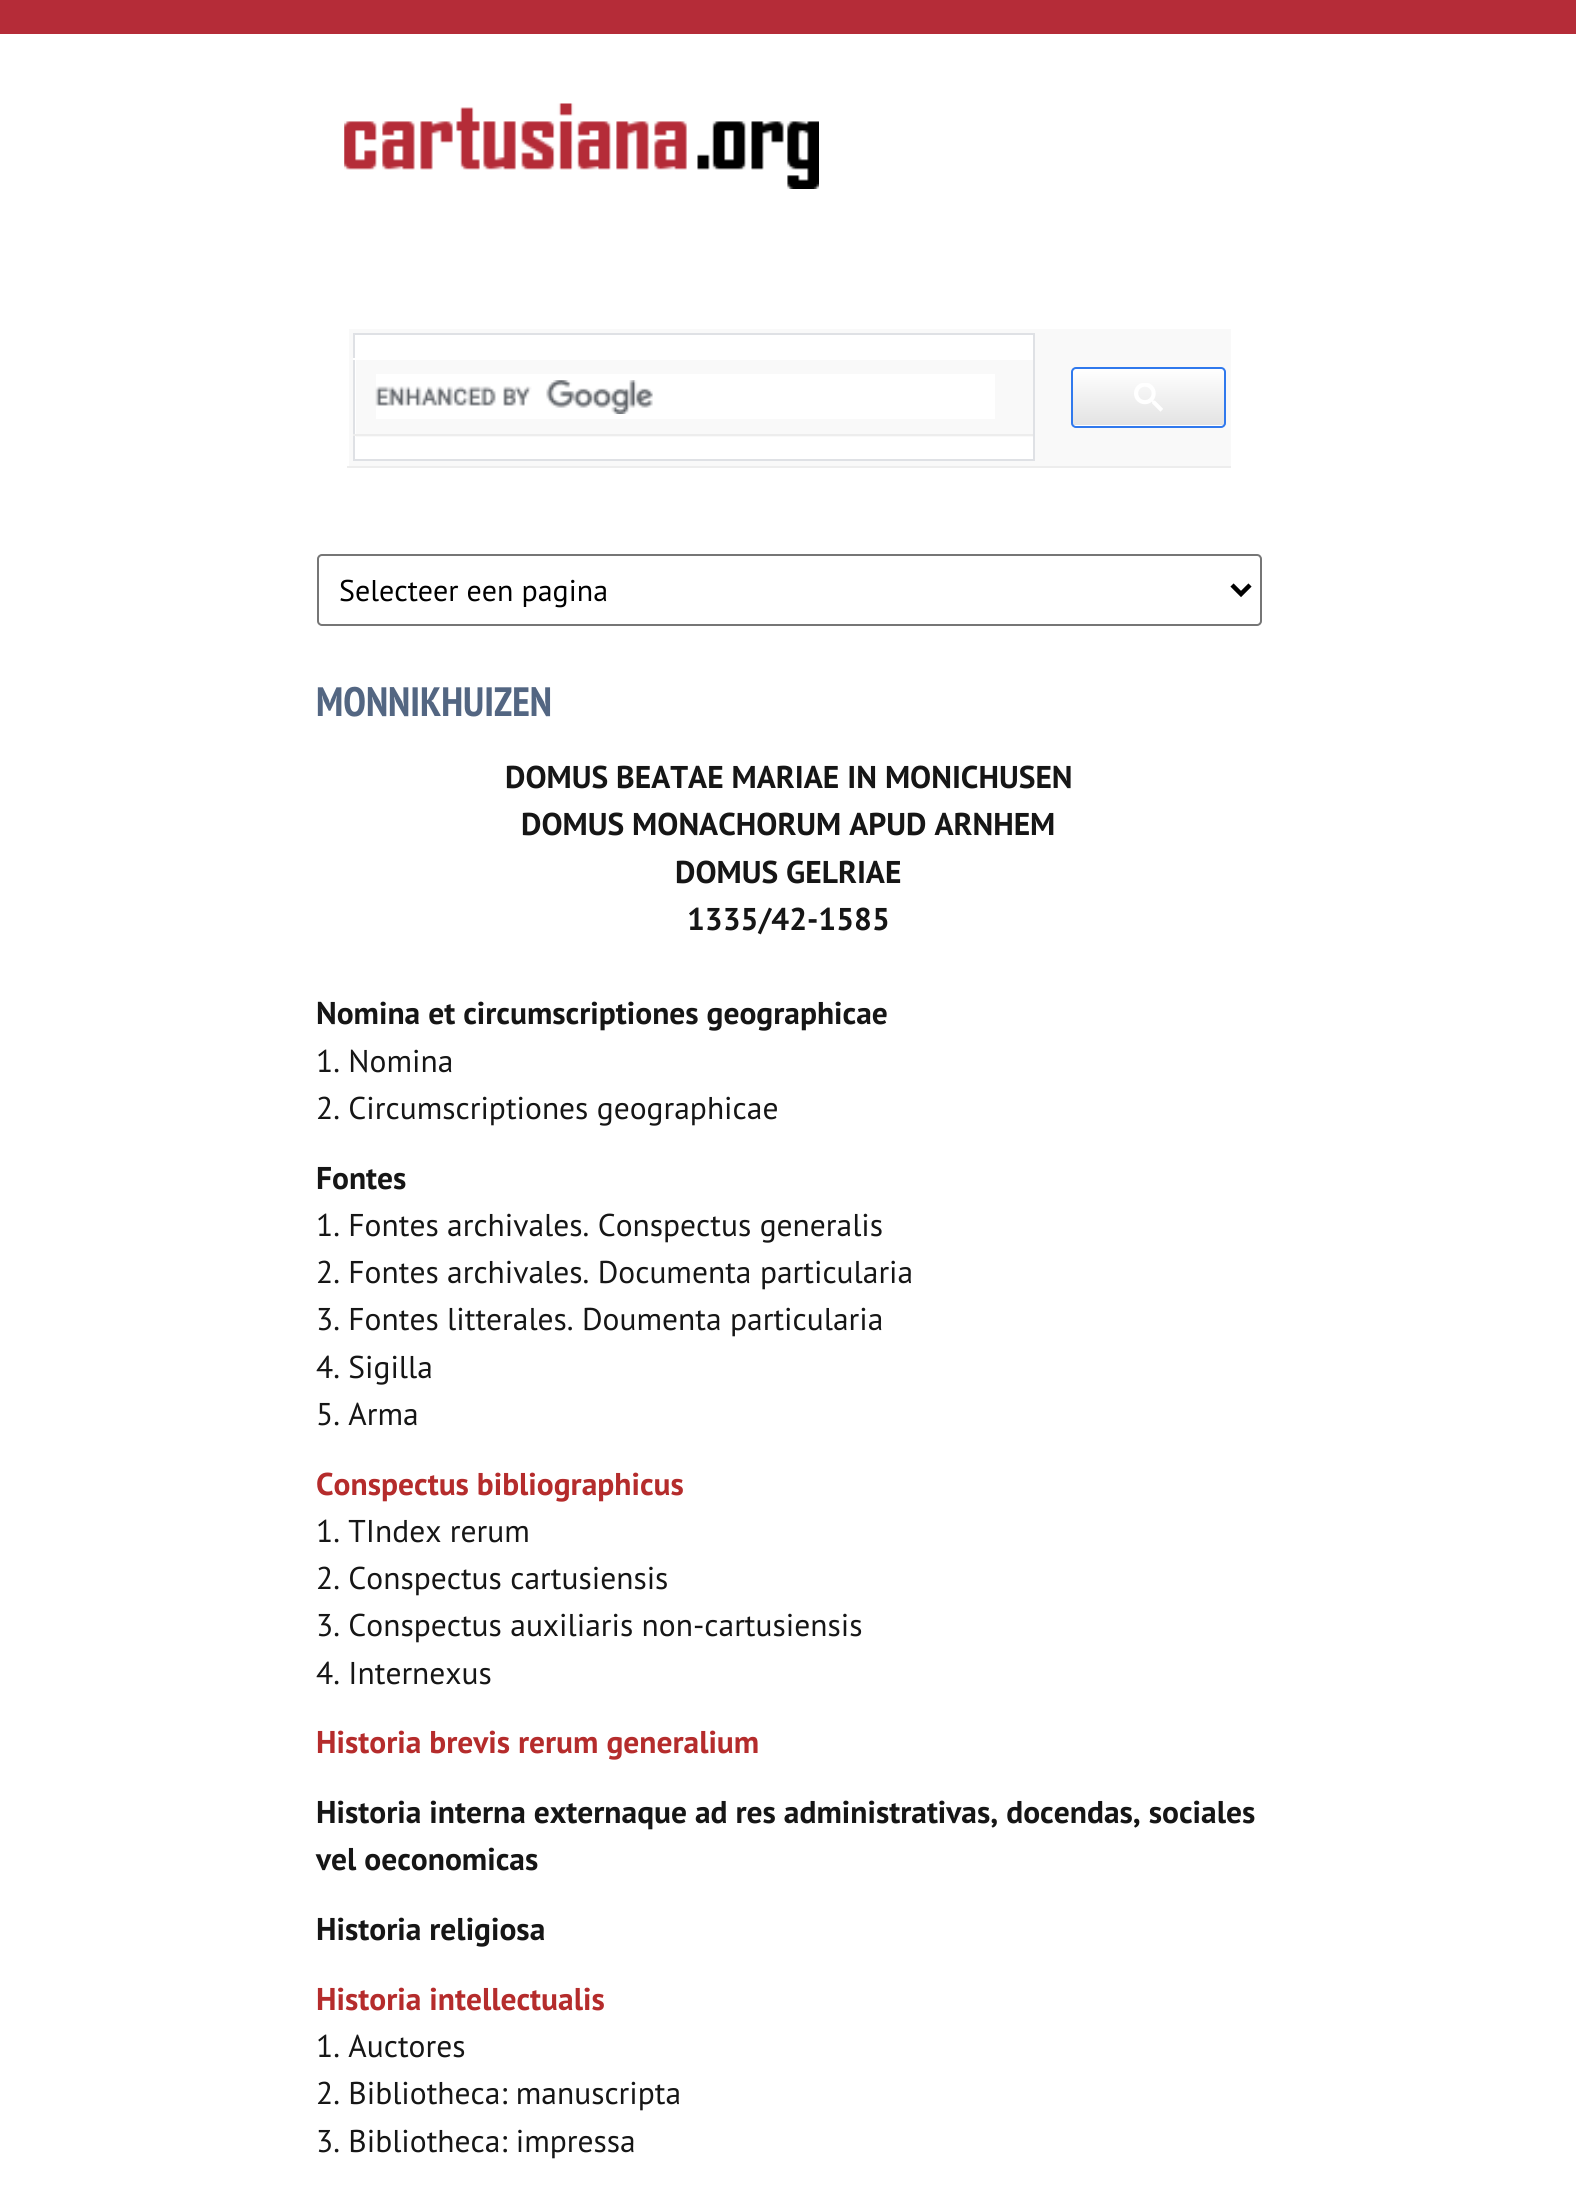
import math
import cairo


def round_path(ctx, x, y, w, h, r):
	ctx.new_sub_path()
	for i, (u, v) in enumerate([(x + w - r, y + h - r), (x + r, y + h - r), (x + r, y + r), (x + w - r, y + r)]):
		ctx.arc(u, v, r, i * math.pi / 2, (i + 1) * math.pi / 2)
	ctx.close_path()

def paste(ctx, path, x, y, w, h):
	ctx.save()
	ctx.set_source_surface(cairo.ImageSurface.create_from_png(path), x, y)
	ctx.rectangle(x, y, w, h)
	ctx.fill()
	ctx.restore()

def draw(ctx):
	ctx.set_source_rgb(1, 1, 1)
	ctx.paint()
	ctx.set_source_rgb(0.71, 0.173, 0.22)
	ctx.rectangle(0, 0, 1576, 34)
	ctx.fill()
	paste(ctx, 'media/1.png', 344, 103, 475, 86)
	ctx.set_source_rgb(0.976, 0.976, 0.976)
	ctx.rectangle(349, 329, 882, 137)
	ctx.fill()
	ctx.set_source_rgb(0.929, 0.929, 0.929)
	ctx.rectangle(347, 466, 884, 2)
	ctx.fill()
	ctx.set_source_rgb(1, 1, 1)
	ctx.rectangle(354, 334, 680, 126)
	ctx.fill_preserve()
	ctx.set_source_rgb(0.875, 0.882, 0.898)
	ctx.stroke()
	ctx.set_source_rgb(0.976, 0.976, 0.976)
	ctx.rectangle(356, 360, 677, 77)
	ctx.fill()
	ctx.set_source_rgb(1, 1, 1)
	ctx.rectangle(353, 358, 2, 2)
	ctx.fill()
	ctx.set_source_rgb(0.929, 0.929, 0.929)
	ctx.rectangle(353, 434, 680, 2)
	ctx.fill()
	ctx.set_source_rgb(1, 1, 1)
	ctx.rectangle(376, 374, 619, 45)
	ctx.fill()
	paste(ctx, 'media/2.png', 375, 380, 278, 34)
	ctx.save()
	round_path(ctx, 1071, 367, 155, 61, 5)
	ctx.clip()
	gradient = cairo.LinearGradient(1149, 369, 1149, 425)
	gradient.add_color_stop_rgba(0, 1, 1, 1, 1)
	gradient.add_color_stop_rgba(1, 0.89, 0.89, 0.89, 1)
	ctx.set_source(gradient)
	ctx.rectangle(1071, 369, 155, 56)
	ctx.fill()
	gradient = cairo.LinearGradient(1149, 425, 1149, 482)
	gradient.add_color_stop_rgba(0, 1, 1, 1, 1)
	gradient.add_color_stop_rgba(1, 0.89, 0.89, 0.89, 1)
	ctx.set_source(gradient)
	ctx.rectangle(1071, 425, 155, 3)
	ctx.fill()
	ctx.restore()
	round_path(ctx, 1072, 368, 153, 59, 4)
	ctx.set_source_rgb(0.188, 0.475, 0.929)
	ctx.stroke()
	paste(ctx, 'media/3.png', 1134, 383, 29, 29)
	round_path(ctx, 318, 555, 943, 70, 4)
	ctx.set_source_rgb(0.463, 0.463, 0.463)
	ctx.stroke()
	ctx.new_path()
	ctx.move_to(1232, 585)
	ctx.line_to(1241, 594)
	ctx.line_to(1250, 585)
	ctx.set_source_rgb(0, 0, 0)
	ctx.set_line_width(4.5)
	ctx.stroke()
	ctx.select_font_face('PT Sans')
	ctx.set_font_size(30)
	ctx.move_to(339, 601)
	ctx.show_text('Selecteer een pagina')
	ctx.select_font_face('PT Sans Narrow', cairo.FONT_SLANT_NORMAL, cairo.FONT_WEIGHT_BOLD)
	ctx.set_font_size(41)
	ctx.set_source_rgb(0.325, 0.4, 0.51)
	ctx.move_to(316, 716)
	ctx.show_text('MONNIKHUIZEN')
	ctx.select_font_face('PT Sans', cairo.FONT_SLANT_NORMAL, cairo.FONT_WEIGHT_BOLD)
	ctx.set_font_size(31.5)
	ctx.set_source_rgb(0.086, 0.086, 0.086)
	for x, y, s in [
		(505, 788, 'DOMUS BEATAE MARIAE IN MONICHUSEN'),
		(521, 835, 'DOMUS MONACHORUM APUD ARNHEM'),
		(675, 883, 'DOMUS GELRIAE'),
		(687, 930, '1335/42-1585'),
		(316, 1024, 'Nomina et circumscriptiones geographicae'),
	]:
		ctx.move_to(x, y)
		ctx.show_text(s)
	ctx.select_font_face('PT Sans')
	ctx.move_to(316, 1072)
	ctx.show_text('1. Nomina')
	ctx.move_to(316, 1119)
	ctx.show_text('2. Circumscriptiones geographicae')
	ctx.select_font_face('PT Sans', cairo.FONT_SLANT_NORMAL, cairo.FONT_WEIGHT_BOLD)
	ctx.move_to(316, 1189)
	ctx.show_text('Fontes')
	ctx.select_font_face('PT Sans')
	for x, y, s in [
		(316, 1236, '1. Fontes archivales. Conspectus generalis'),
		(316, 1283, '2. Fontes archivales. Documenta particularia'),
		(316, 1330, '3. Fontes litterales. Doumenta particularia'),
		(316, 1378, '4. Sigilla'),
		(316, 1425, '5. Arma'),
	]:
		ctx.move_to(x, y)
		ctx.show_text(s)
	ctx.select_font_face('PT Sans', cairo.FONT_SLANT_NORMAL, cairo.FONT_WEIGHT_BOLD)
	ctx.set_source_rgb(0.71, 0.173, 0.173)
	ctx.move_to(316, 1495)
	ctx.show_text('Conspectus bibliographicus')
	ctx.select_font_face('PT Sans')
	ctx.set_source_rgb(0.086, 0.086, 0.086)
	for x, y, s in [
		(316, 1542, '1. TIndex rerum'),
		(316, 1589, '2. Conspectus cartusiensis'),
		(316, 1636, '3. Conspectus auxiliaris non-cartusiensis'),
		(316, 1684, '4. Internexus'),
	]:
		ctx.move_to(x, y)
		ctx.show_text(s)
	ctx.select_font_face('PT Sans', cairo.FONT_SLANT_NORMAL, cairo.FONT_WEIGHT_BOLD)
	ctx.set_source_rgb(0.71, 0.173, 0.173)
	ctx.move_to(316, 1753)
	ctx.show_text('Historia brevis rerum generalium')
	ctx.set_source_rgb(0.086, 0.086, 0.086)
	for x, y, s in [
		(316, 1823, 'Historia interna externaque ad res administrativas, docendas, sociales'),
		(316, 1870, 'vel oeconomicas'),
		(316, 1940, 'Historia religiosa'),
	]:
		ctx.move_to(x, y)
		ctx.show_text(s)
	ctx.set_source_rgb(0.71, 0.173, 0.173)
	ctx.move_to(316, 2010)
	ctx.show_text('Historia intellectualis')
	ctx.select_font_face('PT Sans')
	ctx.set_source_rgb(0.086, 0.086, 0.086)
	for x, y, s in [
		(316, 2057, '1. Auctores'),
		(316, 2104, '2. Bibliotheca: manuscripta'),
		(316, 2152, '3. Bibliotheca: impressa'),
	]:
		ctx.move_to(x, y)
		ctx.show_text(s)


surface = cairo.ImageSurface(cairo.FORMAT_RGB24, 1576, 2202)
ctx = cairo.Context(surface)
options = cairo.FontOptions()
options.set_hint_metrics(cairo.HINT_METRICS_OFF)
options.set_hint_style(cairo.HINT_STYLE_NONE)
ctx.set_font_options(options)
ctx.set_miter_limit(4)
draw(ctx)
surface.write_to_png('image.png')
